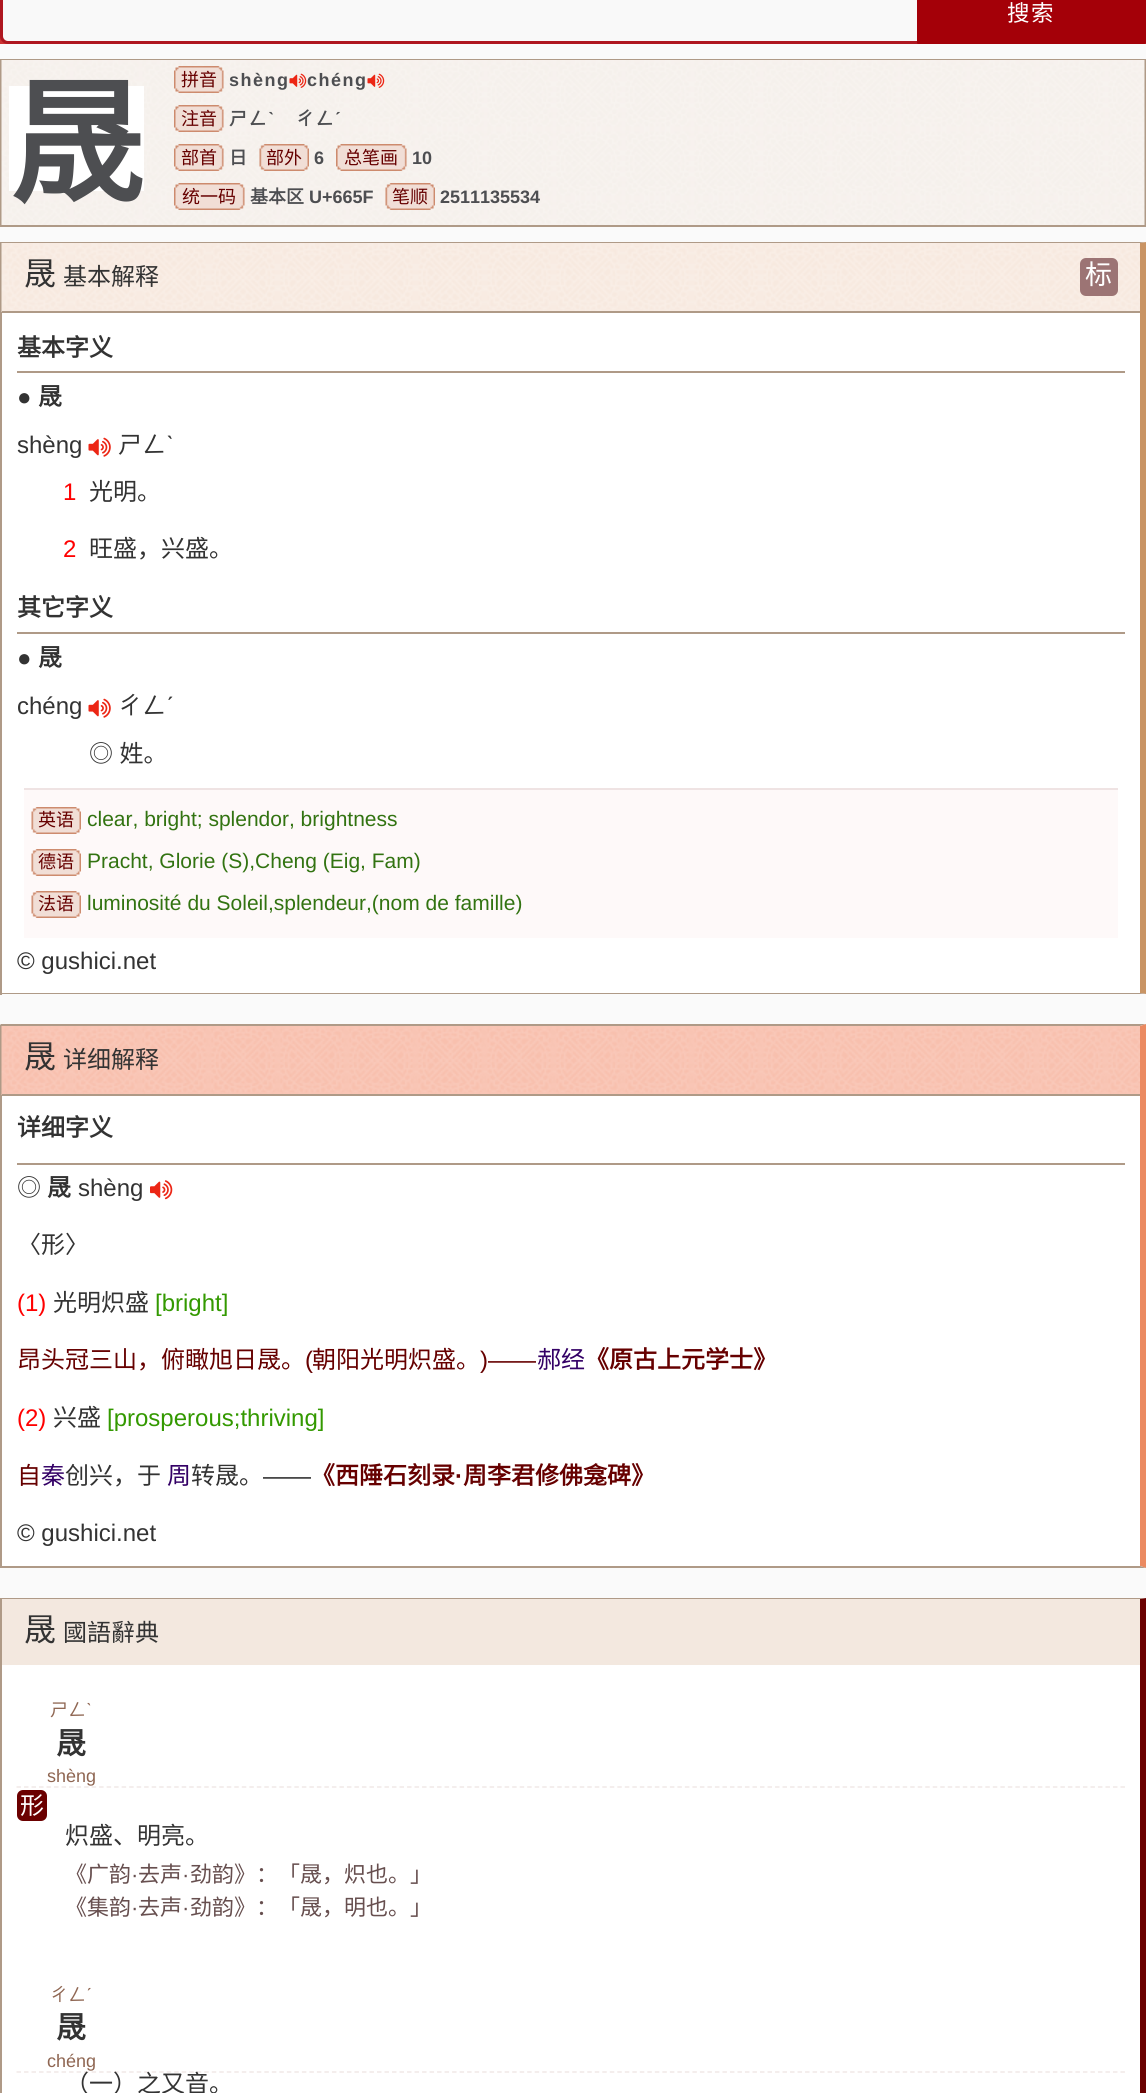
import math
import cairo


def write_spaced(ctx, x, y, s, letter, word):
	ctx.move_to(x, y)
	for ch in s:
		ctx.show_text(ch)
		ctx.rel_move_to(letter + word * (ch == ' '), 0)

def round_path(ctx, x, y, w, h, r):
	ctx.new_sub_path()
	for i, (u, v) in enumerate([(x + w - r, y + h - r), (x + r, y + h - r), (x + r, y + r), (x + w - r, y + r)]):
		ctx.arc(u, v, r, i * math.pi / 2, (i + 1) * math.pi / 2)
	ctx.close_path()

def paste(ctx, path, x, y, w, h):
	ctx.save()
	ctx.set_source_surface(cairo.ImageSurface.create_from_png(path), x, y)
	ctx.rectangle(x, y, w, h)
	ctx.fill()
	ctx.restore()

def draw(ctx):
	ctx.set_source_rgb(0.98, 0.98, 0.98)
	ctx.paint()
	ctx.set_source_rgb(0.8, 0.2, 0.2)
	ctx.rectangle(0, 36, 1146, 8)
	ctx.fill()
	ctx.set_source_rgb(0.973, 0.973, 0.973)
	round_path(ctx, 1.5, -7.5, 1131, 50, 6.5)
	ctx.fill_preserve()
	ctx.set_source_rgb(0.686, 0.09, 0.125)
	ctx.set_line_width(3)
	ctx.stroke()
	ctx.set_source_rgb(0.643, 0, 0.035)
	ctx.new_path()
	ctx.move_to(917, -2)
	ctx.line_to(1146, -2)
	ctx.line_to(1146, 42.5)
	ctx.curve_to(1146, 43.5, 1145.5, 44, 1144.5, 44)
	ctx.line_to(918.5, 44)
	ctx.curve_to(917.5, 44, 917, 43.5, 917, 42.5)
	ctx.close_path()
	ctx.fill()
	ctx.select_font_face('Noto Sans CJK SC')
	ctx.set_font_size(22.5)
	ctx.set_source_rgb(1, 1, 1)
	write_spaced(ctx, 1007, 21, '搜索', 1.5, 0)
	ctx.rectangle(1, 60, 1144, 166)
	ctx.set_source_rgb(0.686, 0.604, 0.529)
	ctx.set_line_width(2)
	ctx.stroke()
	paste(ctx, 'media/1.png', 1, 60, 1144, 165)
	ctx.set_source_rgb(1, 1, 1)
	ctx.rectangle(9, 86, 135, 105)
	ctx.fill()
	ctx.select_font_face('Noto Sans CJK SC', cairo.FONT_SLANT_NORMAL, cairo.FONT_WEIGHT_BOLD)
	ctx.set_font_size(135)
	ctx.set_source_rgb(0.302, 0.306, 0.318)
	ctx.move_to(9, 192)
	ctx.show_text('晟')
	paste(ctx, 'media/2.png', 174, 66, 50, 27)
	ctx.select_font_face('Noto Sans CJK SC')
	ctx.set_font_size(18)
	ctx.set_source_rgb(0.4, 0, 0)
	ctx.move_to(181, 86)
	ctx.show_text('拼音')
	ctx.select_font_face('Liberation Sans', cairo.FONT_SLANT_NORMAL, cairo.FONT_WEIGHT_BOLD)
	ctx.set_source_rgb(0.302, 0.306, 0.318)
	write_spaced(ctx, 229, 86, 'shèng', 1.5, 0)
	paste(ctx, 'media/3.png', 289, 73, 18, 15)
	write_spaced(ctx, 307, 86, 'chéng', 1.5, 0)
	paste(ctx, 'media/4.png', 367, 73, 18, 15)
	paste(ctx, 'media/5.png', 174, 105, 50, 27)
	ctx.select_font_face('Noto Sans CJK SC')
	ctx.set_source_rgb(0.4, 0, 0)
	ctx.move_to(181, 125)
	ctx.show_text('注音')
	ctx.select_font_face('Noto Sans CJK SC', cairo.FONT_SLANT_NORMAL, cairo.FONT_WEIGHT_BOLD)
	ctx.set_source_rgb(0.302, 0.306, 0.318)
	write_spaced(ctx, 229, 125, 'ㄕㄥ', 1.5, 0)
	ctx.select_font_face('Liberation Sans', cairo.FONT_SLANT_NORMAL, cairo.FONT_WEIGHT_BOLD)
	write_spaced(ctx, 268, 125, 'ˋ', 1.5, 0)
	ctx.select_font_face('Noto Sans CJK SC', cairo.FONT_SLANT_NORMAL, cairo.FONT_WEIGHT_BOLD)
	write_spaced(ctx, 296, 125, 'ㄔㄥ', 1.5, 0)
	ctx.select_font_face('Liberation Sans', cairo.FONT_SLANT_NORMAL, cairo.FONT_WEIGHT_BOLD)
	write_spaced(ctx, 335, 125, 'ˊ', 1.5, 0)
	paste(ctx, 'media/6.png', 174, 144, 50, 27)
	ctx.select_font_face('Noto Sans CJK SC')
	ctx.set_source_rgb(0.4, 0, 0)
	ctx.move_to(181, 164)
	ctx.show_text('部首')
	ctx.select_font_face('Noto Sans CJK SC', cairo.FONT_SLANT_NORMAL, cairo.FONT_WEIGHT_BOLD)
	ctx.set_source_rgb(0.302, 0.306, 0.318)
	ctx.move_to(229, 164)
	ctx.show_text('日')
	paste(ctx, 'media/7.png', 259, 144, 50, 27)
	ctx.select_font_face('Noto Sans CJK SC')
	ctx.set_source_rgb(0.4, 0, 0)
	ctx.move_to(266, 164)
	ctx.show_text('部外')
	ctx.select_font_face('Liberation Sans', cairo.FONT_SLANT_NORMAL, cairo.FONT_WEIGHT_BOLD)
	ctx.set_source_rgb(0.302, 0.306, 0.318)
	ctx.move_to(314, 164)
	ctx.show_text('6')
	paste(ctx, 'media/8.png', 336, 144, 71, 27)
	ctx.select_font_face('Noto Sans CJK SC')
	ctx.set_source_rgb(0.4, 0, 0)
	ctx.move_to(344, 164)
	ctx.show_text('总笔画')
	ctx.select_font_face('Liberation Sans', cairo.FONT_SLANT_NORMAL, cairo.FONT_WEIGHT_BOLD)
	ctx.set_source_rgb(0.302, 0.306, 0.318)
	ctx.move_to(412, 164)
	ctx.show_text('10')
	paste(ctx, 'media/9.png', 174, 183, 71, 27)
	ctx.select_font_face('Noto Sans CJK SC')
	ctx.set_source_rgb(0.4, 0, 0)
	ctx.move_to(182, 203)
	ctx.show_text('统一码')
	ctx.select_font_face('Noto Sans CJK SC', cairo.FONT_SLANT_NORMAL, cairo.FONT_WEIGHT_BOLD)
	ctx.set_source_rgb(0.302, 0.306, 0.318)
	ctx.move_to(250, 203)
	ctx.show_text('基本区')
	ctx.select_font_face('Liberation Sans', cairo.FONT_SLANT_NORMAL, cairo.FONT_WEIGHT_BOLD)
	ctx.move_to(309, 203)
	ctx.show_text('U+665F')
	paste(ctx, 'media/10.png', 385, 183, 50, 27)
	ctx.select_font_face('Noto Sans CJK SC')
	ctx.set_source_rgb(0.4, 0, 0)
	ctx.move_to(392, 203)
	ctx.show_text('笔顺')
	ctx.select_font_face('Liberation Sans', cairo.FONT_SLANT_NORMAL, cairo.FONT_WEIGHT_BOLD)
	ctx.set_source_rgb(0.302, 0.306, 0.318)
	ctx.move_to(440, 203)
	ctx.show_text('2511135534')
	ctx.set_source_rgb(1, 1, 1)
	ctx.rectangle(2, 313, 1138, 680)
	ctx.fill()
	ctx.set_source_rgb(0.686, 0.604, 0.529)
	ctx.new_path()
	ctx.move_to(0, 242)
	ctx.line_to(1146, 242)
	ctx.line_to(1140, 243)
	ctx.line_to(2, 243)
	ctx.close_path()
	ctx.fill()
	ctx.set_source_rgb(0.788, 0.58, 0.392)
	ctx.new_path()
	ctx.move_to(1146, 242)
	ctx.line_to(1146, 994)
	ctx.line_to(1140, 993)
	ctx.line_to(1140, 243)
	ctx.close_path()
	ctx.fill()
	ctx.set_source_rgb(0.686, 0.604, 0.529)
	ctx.new_path()
	ctx.move_to(1146, 994)
	ctx.line_to(0, 994)
	ctx.line_to(2, 993)
	ctx.line_to(1140, 993)
	ctx.close_path()
	ctx.fill()
	ctx.rectangle(0, 242, 2, 753)
	ctx.fill()
	paste(ctx, 'media/11.png', 1, 243, 1139, 69)
	ctx.rectangle(2, 311, 1138, 2)
	ctx.fill()
	ctx.select_font_face('Noto Sans CJK SC')
	ctx.set_font_size(32)
	ctx.set_source_rgb(0.2, 0.2, 0.2)
	ctx.move_to(24, 285)
	ctx.show_text('晟')
	ctx.set_font_size(24)
	ctx.move_to(63, 285)
	ctx.show_text('基本解释')
	ctx.set_source_rgb(0.612, 0.455, 0.455)
	round_path(ctx, 1080, 258, 38, 38, 6)
	ctx.fill()
	ctx.set_font_size(27)
	ctx.set_source_rgb(1, 1, 1)
	ctx.move_to(1085, 284)
	ctx.show_text('标')
	ctx.select_font_face('Noto Sans CJK SC', cairo.FONT_SLANT_NORMAL, cairo.FONT_WEIGHT_BOLD)
	ctx.set_font_size(24)
	ctx.set_source_rgb(0.2, 0.2, 0.2)
	ctx.move_to(17, 356)
	ctx.show_text('基本字义')
	ctx.set_source_rgb(0.686, 0.604, 0.529)
	ctx.rectangle(17, 371, 1108, 2)
	ctx.fill()
	ctx.select_font_face('Liberation Sans')
	ctx.set_source_rgb(0.2, 0.2, 0.2)
	ctx.move_to(17, 405)
	ctx.show_text('●')
	ctx.select_font_face('Noto Sans CJK SC', cairo.FONT_SLANT_NORMAL, cairo.FONT_WEIGHT_BOLD)
	ctx.move_to(38, 405)
	ctx.show_text('晟')
	ctx.select_font_face('Liberation Sans')
	ctx.move_to(17, 453)
	ctx.show_text('shèng')
	paste(ctx, 'media/12.png', 88, 437, 23, 20)
	ctx.select_font_face('Noto Sans CJK SC')
	ctx.move_to(118, 453)
	ctx.show_text('ㄕㄥ')
	ctx.select_font_face('Liberation Sans')
	ctx.move_to(166, 453)
	ctx.show_text('ˋ')
	ctx.set_source_rgb(1, 0, 0)
	ctx.move_to(63, 500)
	ctx.show_text('1')
	ctx.select_font_face('Noto Sans CJK SC')
	ctx.set_source_rgb(0.2, 0.2, 0.2)
	ctx.move_to(89, 500)
	ctx.show_text('光明。')
	ctx.select_font_face('Liberation Sans')
	ctx.set_source_rgb(1, 0, 0)
	ctx.move_to(63, 557)
	ctx.show_text('2')
	ctx.select_font_face('Noto Sans CJK SC')
	ctx.set_source_rgb(0.2, 0.2, 0.2)
	ctx.move_to(89, 557)
	ctx.show_text('旺盛，兴盛。')
	ctx.select_font_face('Noto Sans CJK SC', cairo.FONT_SLANT_NORMAL, cairo.FONT_WEIGHT_BOLD)
	ctx.move_to(17, 616)
	ctx.show_text('其它字义')
	ctx.set_source_rgb(0.686, 0.604, 0.529)
	ctx.rectangle(17, 632, 1108, 2)
	ctx.fill()
	ctx.select_font_face('Liberation Sans')
	ctx.set_source_rgb(0.2, 0.2, 0.2)
	ctx.move_to(17, 666)
	ctx.show_text('●')
	ctx.select_font_face('Noto Sans CJK SC', cairo.FONT_SLANT_NORMAL, cairo.FONT_WEIGHT_BOLD)
	ctx.move_to(38, 666)
	ctx.show_text('晟')
	ctx.select_font_face('Liberation Sans')
	ctx.move_to(17, 714)
	ctx.show_text('chéng')
	paste(ctx, 'media/12.png', 88, 698, 23, 20)
	ctx.select_font_face('Noto Sans CJK SC')
	ctx.move_to(118, 714)
	ctx.show_text('ㄔㄥ')
	ctx.select_font_face('Liberation Sans')
	ctx.move_to(166, 714)
	ctx.show_text('ˊ')
	ctx.select_font_face('Noto Sans CJK SC')
	write_spaced(ctx, 89, 762, '◎ 姓。', 0, 1)
	ctx.set_source_rgb(0.996, 0.976, 0.976)
	ctx.rectangle(24, 790, 1094, 148)
	ctx.fill()
	ctx.set_source_rgb(0.937, 0.89, 0.89)
	ctx.rectangle(24, 788, 1094, 2)
	ctx.fill()
	paste(ctx, 'media/13.png', 31, 807, 50, 27)
	ctx.set_font_size(18)
	ctx.set_source_rgb(0.4, 0, 0)
	ctx.move_to(38, 826)
	ctx.show_text('英语')
	ctx.select_font_face('Liberation Sans')
	ctx.set_font_size(21)
	ctx.set_source_rgb(0.196, 0.451, 0.067)
	ctx.move_to(87, 826)
	ctx.show_text('clear, bright; splendor, brightness')
	paste(ctx, 'media/13.png', 31, 849, 50, 27)
	ctx.select_font_face('Noto Sans CJK SC')
	ctx.set_font_size(18)
	ctx.set_source_rgb(0.4, 0, 0)
	ctx.move_to(38, 868)
	ctx.show_text('德语')
	ctx.select_font_face('Liberation Sans')
	ctx.set_font_size(21)
	ctx.set_source_rgb(0.196, 0.451, 0.067)
	ctx.move_to(87, 868)
	ctx.show_text('Pracht, Glorie (S),Cheng (Eig, Fam)')
	paste(ctx, 'media/13.png', 31, 891, 50, 27)
	ctx.select_font_face('Noto Sans CJK SC')
	ctx.set_font_size(18)
	ctx.set_source_rgb(0.4, 0, 0)
	ctx.move_to(38, 910)
	ctx.show_text('法语')
	ctx.select_font_face('Liberation Sans')
	ctx.set_font_size(21)
	ctx.set_source_rgb(0.196, 0.451, 0.067)
	ctx.move_to(87, 910)
	ctx.show_text('luminosité du Soleil,splendeur,(nom de famille)')
	ctx.set_font_size(24)
	ctx.set_source_rgb(0.2, 0.2, 0.2)
	ctx.move_to(17, 969)
	ctx.show_text('© gushici.net')
	ctx.set_source_rgb(1, 1, 1)
	ctx.rectangle(2, 1096, 1138, 470)
	ctx.fill()
	ctx.set_source_rgb(0.686, 0.604, 0.529)
	ctx.new_path()
	ctx.move_to(0, 1024)
	ctx.line_to(1146, 1024)
	ctx.line_to(1140, 1026)
	ctx.line_to(2, 1026)
	ctx.close_path()
	ctx.fill()
	ctx.set_source_rgb(0.918, 0.541, 0.38)
	ctx.new_path()
	ctx.move_to(1146, 1024)
	ctx.line_to(1146, 1568)
	ctx.line_to(1140, 1566)
	ctx.line_to(1140, 1026)
	ctx.close_path()
	ctx.fill()
	ctx.set_source_rgb(0.686, 0.604, 0.529)
	ctx.new_path()
	ctx.move_to(1146, 1568)
	ctx.line_to(0, 1568)
	ctx.line_to(2, 1566)
	ctx.line_to(1140, 1566)
	ctx.close_path()
	ctx.fill()
	ctx.rectangle(0, 1025, 2, 543)
	ctx.fill()
	paste(ctx, 'media/14.png', 1, 1026, 1139, 69)
	ctx.rectangle(2, 1094, 1138, 2)
	ctx.fill()
	ctx.select_font_face('Noto Sans CJK SC')
	ctx.set_font_size(32)
	ctx.set_source_rgb(0.2, 0.2, 0.2)
	ctx.move_to(24, 1068)
	ctx.show_text('晟')
	ctx.set_font_size(24)
	ctx.move_to(63, 1068)
	ctx.show_text('详细解释')
	ctx.select_font_face('Noto Sans CJK SC', cairo.FONT_SLANT_NORMAL, cairo.FONT_WEIGHT_BOLD)
	ctx.move_to(17, 1136)
	ctx.show_text('详细字义')
	ctx.set_source_rgb(0.686, 0.604, 0.529)
	ctx.rectangle(17, 1163, 1108, 2)
	ctx.fill()
	ctx.select_font_face('Noto Sans CJK SC')
	ctx.set_source_rgb(0.2, 0.2, 0.2)
	ctx.move_to(17, 1196)
	ctx.show_text('◎')
	ctx.select_font_face('Noto Sans CJK SC', cairo.FONT_SLANT_NORMAL, cairo.FONT_WEIGHT_BOLD)
	ctx.move_to(47, 1196)
	ctx.show_text('晟')
	ctx.select_font_face('Liberation Sans')
	ctx.move_to(78, 1196)
	ctx.show_text('shèng')
	paste(ctx, 'media/15.png', 150, 1180, 23, 20)
	ctx.select_font_face('Noto Sans CJK SC')
	ctx.move_to(17, 1253)
	ctx.show_text('〈形〉')
	ctx.select_font_face('Liberation Sans')
	ctx.set_source_rgb(1, 0, 0)
	ctx.move_to(17, 1311)
	ctx.show_text('(1)')
	ctx.select_font_face('Noto Sans CJK SC')
	ctx.set_source_rgb(0.2, 0.2, 0.2)
	ctx.move_to(53, 1311)
	ctx.show_text('光明炽盛')
	ctx.select_font_face('Liberation Sans')
	ctx.set_source_rgb(0.2, 0.6, 0)
	ctx.move_to(155, 1311)
	ctx.show_text('[bright]')
	ctx.select_font_face('Noto Sans CJK SC')
	ctx.set_source_rgb(0.4, 0, 0)
	ctx.move_to(17, 1368)
	ctx.show_text('昂头冠三山，俯瞰旭日晟。')
	ctx.select_font_face('Liberation Sans')
	ctx.move_to(305, 1368)
	ctx.show_text('(')
	ctx.select_font_face('Noto Sans CJK SC')
	ctx.move_to(312, 1368)
	ctx.show_text('朝阳光明炽盛。')
	ctx.select_font_face('Liberation Sans')
	ctx.move_to(480, 1368)
	ctx.show_text(')——')
	ctx.select_font_face('Noto Sans CJK SC')
	ctx.set_source_rgb(0.2, 0, 0.4)
	ctx.move_to(537, 1368)
	ctx.show_text('郝经')
	ctx.select_font_face('Noto Sans CJK SC', cairo.FONT_SLANT_NORMAL, cairo.FONT_WEIGHT_BOLD)
	ctx.set_source_rgb(0.4, 0, 0)
	ctx.move_to(585, 1368)
	ctx.show_text('《原古上元学士》')
	ctx.select_font_face('Liberation Sans')
	ctx.set_source_rgb(1, 0, 0)
	ctx.move_to(17, 1426)
	ctx.show_text('(2)')
	ctx.select_font_face('Noto Sans CJK SC')
	ctx.set_source_rgb(0.2, 0.2, 0.2)
	ctx.move_to(53, 1426)
	ctx.show_text('兴盛')
	ctx.select_font_face('Liberation Sans')
	ctx.set_source_rgb(0.2, 0.6, 0)
	ctx.move_to(107, 1426)
	ctx.show_text('[prosperous;thriving]')
	ctx.select_font_face('Noto Sans CJK SC')
	ctx.set_source_rgb(0.4, 0, 0)
	ctx.move_to(17, 1484)
	ctx.show_text('自')
	ctx.set_source_rgb(0.2, 0, 0.4)
	ctx.move_to(41, 1484)
	ctx.show_text('秦')
	ctx.set_source_rgb(0.2, 0.2, 0.2)
	ctx.move_to(65, 1484)
	ctx.show_text('创兴，于')
	ctx.set_source_rgb(0.2, 0, 0.4)
	ctx.move_to(167, 1484)
	ctx.show_text('周')
	ctx.set_source_rgb(0.2, 0.2, 0.2)
	ctx.move_to(191, 1484)
	ctx.show_text('转晟。')
	ctx.select_font_face('Liberation Sans')
	ctx.move_to(263, 1484)
	ctx.show_text('——')
	ctx.select_font_face('Noto Sans CJK SC', cairo.FONT_SLANT_NORMAL, cairo.FONT_WEIGHT_BOLD)
	ctx.set_source_rgb(0.4, 0, 0)
	ctx.move_to(311, 1484)
	ctx.show_text('《西陲石刻录')
	ctx.select_font_face('Liberation Sans', cairo.FONT_SLANT_NORMAL, cairo.FONT_WEIGHT_BOLD)
	ctx.move_to(455, 1484)
	ctx.show_text('·')
	ctx.select_font_face('Noto Sans CJK SC', cairo.FONT_SLANT_NORMAL, cairo.FONT_WEIGHT_BOLD)
	ctx.move_to(463, 1484)
	ctx.show_text('周李君修佛龛碑》')
	ctx.select_font_face('Liberation Sans')
	ctx.set_source_rgb(0.2, 0.2, 0.2)
	ctx.move_to(17, 1541)
	ctx.show_text('© gushici.net')
	ctx.set_source_rgb(1, 1, 1)
	ctx.rectangle(2, 1665, 1138, 428)
	ctx.fill()
	ctx.set_source_rgb(0.686, 0.604, 0.529)
	ctx.new_path()
	ctx.move_to(0, 1598)
	ctx.line_to(1146, 1598)
	ctx.line_to(1140, 1599)
	ctx.line_to(2, 1599)
	ctx.close_path()
	ctx.fill()
	ctx.set_source_rgb(0.416, 0, 0)
	ctx.new_path()
	ctx.move_to(1146, 1598)
	ctx.line_to(1146, 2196)
	ctx.line_to(1140, 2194)
	ctx.line_to(1140, 1599)
	ctx.close_path()
	ctx.fill()
	ctx.set_source_rgb(0.686, 0.604, 0.529)
	ctx.rectangle(0, 1598, 2, 495)
	ctx.fill()
	ctx.set_source_rgb(0.953, 0.91, 0.875)
	ctx.rectangle(2, 1599, 1138, 66)
	ctx.fill()
	ctx.select_font_face('Noto Sans CJK SC')
	ctx.set_font_size(32)
	ctx.set_source_rgb(0.2, 0.2, 0.2)
	ctx.move_to(24, 1641)
	ctx.show_text('晟')
	ctx.set_font_size(24)
	ctx.move_to(63, 1641)
	ctx.show_text('國語辭典')
	ctx.new_path()
	ctx.move_to(16.5, 1787)
	ctx.line_to(1125, 1787)
	ctx.set_source_rgb(0.945, 0.914, 0.906)
	ctx.set_line_width(1.5)
	ctx.set_dash([4.5, 3.01])
	ctx.stroke()
	ctx.set_font_size(18)
	ctx.set_source_rgb(0.561, 0.4, 0.322)
	ctx.move_to(50, 1716)
	ctx.show_text('ㄕㄥ')
	ctx.select_font_face('Liberation Sans')
	ctx.move_to(86, 1716)
	ctx.show_text('ˋ')
	ctx.select_font_face('Noto Sans CJK SC', cairo.FONT_SLANT_NORMAL, cairo.FONT_WEIGHT_BOLD)
	ctx.set_font_size(30)
	ctx.set_source_rgb(0.2, 0.2, 0.2)
	ctx.move_to(56, 1754)
	ctx.show_text('晟')
	ctx.select_font_face('Liberation Sans')
	ctx.set_font_size(18)
	ctx.set_source_rgb(0.561, 0.4, 0.322)
	ctx.move_to(47, 1782)
	ctx.show_text('shèng')
	ctx.set_source_rgb(0.42, 0, 0)
	round_path(ctx, 17, 1790, 30, 31, 6)
	ctx.fill()
	ctx.select_font_face('Noto Sans CJK SC')
	ctx.set_font_size(24)
	ctx.set_source_rgb(1, 1, 1)
	ctx.move_to(20, 1814)
	ctx.show_text('形')
	ctx.set_source_rgb(0.2, 0.2, 0.2)
	ctx.move_to(65, 1844)
	ctx.show_text('炽盛、明亮。')
	ctx.set_font_size(22)
	ctx.set_source_rgb(0.404, 0.31, 0.31)
	ctx.move_to(65, 1882)
	ctx.show_text('《广韵')
	ctx.select_font_face('Liberation Sans')
	ctx.move_to(131, 1882)
	ctx.show_text('·')
	ctx.select_font_face('Noto Sans CJK SC')
	ctx.move_to(138, 1882)
	ctx.show_text('去声')
	ctx.select_font_face('Liberation Sans')
	ctx.move_to(182, 1882)
	ctx.show_text('·')
	ctx.select_font_face('Noto Sans CJK SC')
	ctx.move_to(190, 1882)
	ctx.show_text('劲韵》：「晟，炽也。」')
	ctx.move_to(65, 1915)
	ctx.show_text('《集韵')
	ctx.select_font_face('Liberation Sans')
	ctx.move_to(131, 1915)
	ctx.show_text('·')
	ctx.select_font_face('Noto Sans CJK SC')
	ctx.move_to(138, 1915)
	ctx.show_text('去声')
	ctx.select_font_face('Liberation Sans')
	ctx.move_to(182, 1915)
	ctx.show_text('·')
	ctx.select_font_face('Noto Sans CJK SC')
	ctx.move_to(190, 1915)
	ctx.show_text('劲韵》：「晟，明也。」')
	ctx.new_path()
	ctx.move_to(16.5, 2072)
	ctx.line_to(1125, 2072)
	ctx.set_source_rgb(0.945, 0.914, 0.906)
	ctx.stroke()
	ctx.set_font_size(18)
	ctx.set_source_rgb(0.561, 0.4, 0.322)
	ctx.move_to(50, 2001)
	ctx.show_text('ㄔㄥ')
	ctx.select_font_face('Liberation Sans')
	ctx.move_to(86, 2001)
	ctx.show_text('ˊ')
	ctx.select_font_face('Noto Sans CJK SC', cairo.FONT_SLANT_NORMAL, cairo.FONT_WEIGHT_BOLD)
	ctx.set_font_size(30)
	ctx.set_source_rgb(0.2, 0.2, 0.2)
	ctx.move_to(56, 2038)
	ctx.show_text('晟')
	ctx.select_font_face('Liberation Sans')
	ctx.set_font_size(18)
	ctx.set_source_rgb(0.561, 0.4, 0.322)
	ctx.move_to(47, 2067)
	ctx.show_text('chéng')
	ctx.select_font_face('Noto Sans CJK SC')
	ctx.set_font_size(24)
	ctx.set_source_rgb(0.2, 0.2, 0.2)
	ctx.move_to(65, 2092)
	ctx.show_text('（一）之又音。')


surface = cairo.ImageSurface(cairo.FORMAT_RGB24, 1146, 2093)
ctx = cairo.Context(surface)
options = cairo.FontOptions()
options.set_hint_metrics(cairo.HINT_METRICS_OFF)
options.set_hint_style(cairo.HINT_STYLE_NONE)
ctx.set_font_options(options)
ctx.set_miter_limit(4)
draw(ctx)
surface.write_to_png('image.png')
